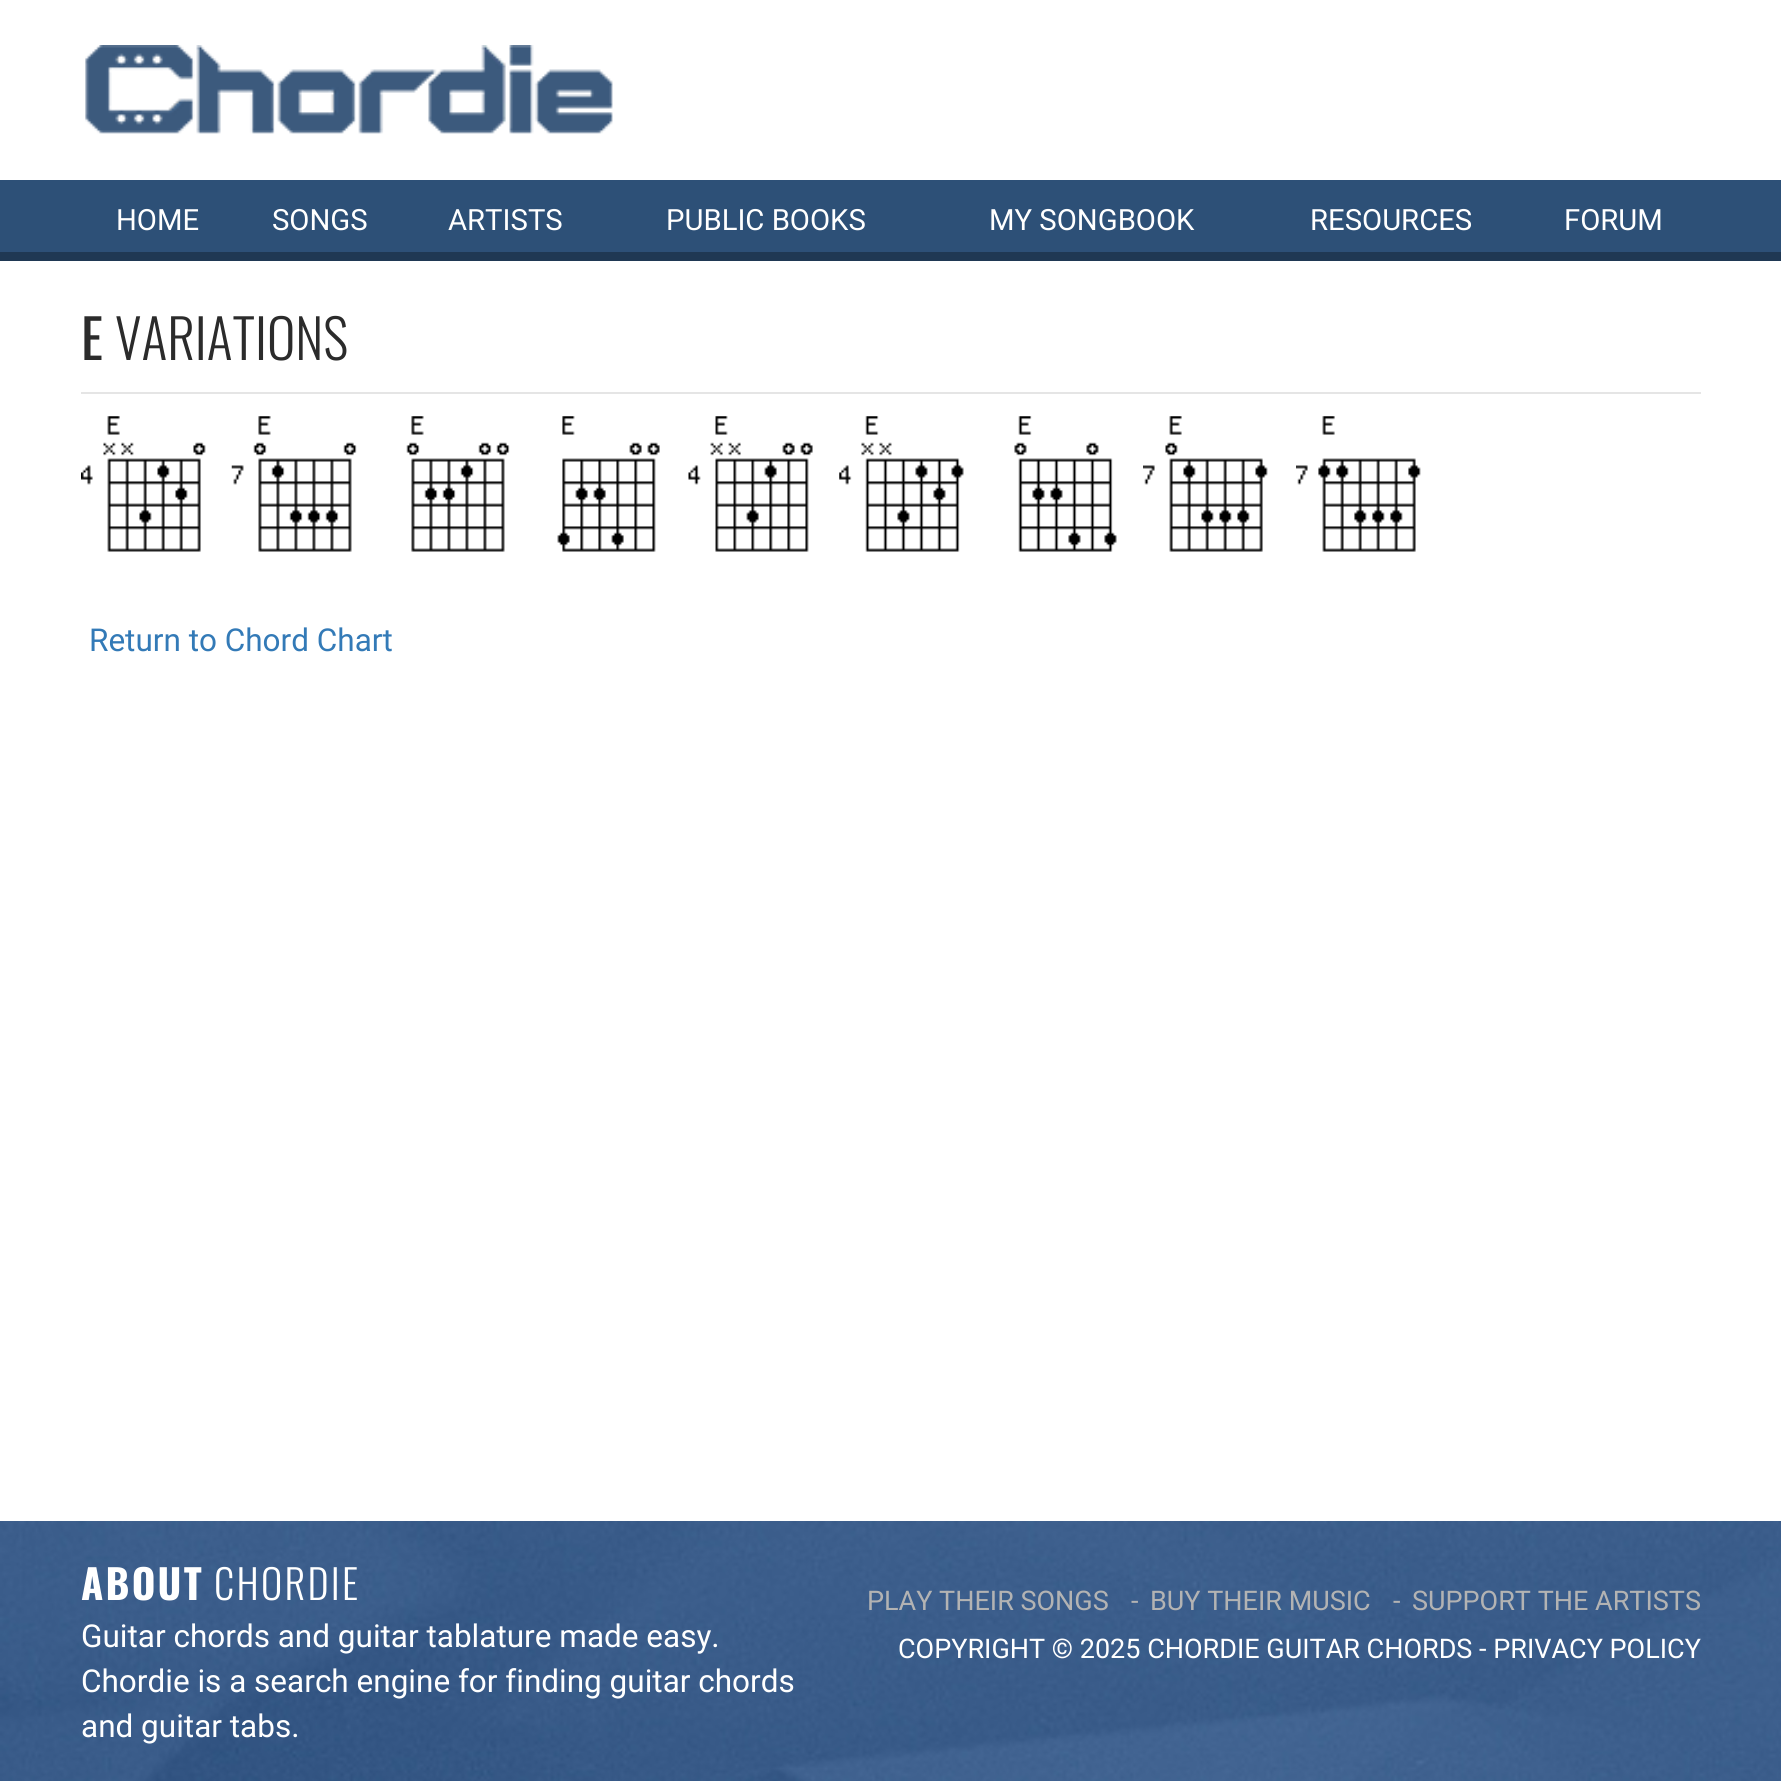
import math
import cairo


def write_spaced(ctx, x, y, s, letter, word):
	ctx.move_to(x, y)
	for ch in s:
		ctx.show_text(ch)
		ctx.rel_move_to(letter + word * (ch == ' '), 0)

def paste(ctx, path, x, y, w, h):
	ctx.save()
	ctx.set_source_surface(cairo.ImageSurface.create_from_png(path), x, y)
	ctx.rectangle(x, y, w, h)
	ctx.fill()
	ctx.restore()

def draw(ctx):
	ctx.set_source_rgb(1, 1, 1)
	ctx.paint()
	paste(ctx, 'media/1.png', 85, 45, 528, 89)
	ctx.set_source_rgb(0.176, 0.314, 0.467)
	ctx.rectangle(0, 180, 1781, 72)
	ctx.fill()
	ctx.set_source_rgb(0.122, 0.22, 0.325)
	ctx.rectangle(0, 252, 1781, 9)
	ctx.fill()
	ctx.select_font_face('Roboto')
	ctx.set_font_size(29.25)
	ctx.set_source_rgb(1, 1, 1)
	for x, y, s in [
		(116, 230, 'HOME'),
		(272, 230, 'SONGS'),
		(448, 230, 'ARTISTS'),
		(666, 230, 'PUBLIC BOOKS'),
		(989, 230, 'MY SONGBOOK'),
		(1310, 230, 'RESOURCES'),
		(1564, 230, 'FORUM'),
	]:
		ctx.move_to(x, y)
		ctx.show_text(s)
	ctx.set_source_rgb(0.898, 0.898, 0.898)
	ctx.rectangle(81, 392, 1620, 2)
	ctx.fill()
	ctx.select_font_face('Oswald')
	ctx.set_font_size(54)
	ctx.set_source_rgb(0.169, 0.169, 0.169)
	ctx.move_to(81, 360)
	ctx.show_text('E')
	ctx.select_font_face('Oswald Light')
	ctx.move_to(115, 360)
	ctx.show_text('VARIATIONS')
	paste(ctx, 'media/2.png', 81, 416, 125, 136)
	paste(ctx, 'media/3.png', 231, 416, 126, 136)
	paste(ctx, 'media/4.png', 406, 416, 104, 136)
	paste(ctx, 'media/5.png', 557, 416, 103, 136)
	paste(ctx, 'media/6.png', 688, 416, 125, 136)
	paste(ctx, 'media/7.png', 839, 416, 125, 136)
	paste(ctx, 'media/8.png', 1014, 416, 103, 136)
	paste(ctx, 'media/9.png', 1143, 416, 125, 136)
	paste(ctx, 'media/10.png', 1296, 416, 125, 136)
	ctx.select_font_face('Roboto')
	ctx.set_font_size(31.5)
	ctx.set_source_rgb(0.2, 0.478, 0.718)
	ctx.move_to(89, 651)
	ctx.show_text('Return to Chord Chart')
	paste(ctx, 'media/11.png', 0, 1521, 1781, 260)
	ctx.select_font_face('Oswald', cairo.FONT_SLANT_NORMAL, cairo.FONT_WEIGHT_BOLD)
	ctx.set_font_size(40.5)
	ctx.set_source_rgb(1, 1, 1)
	write_spaced(ctx, 81, 1600, 'ABOUT', 2.25, 0)
	ctx.select_font_face('Oswald Light')
	write_spaced(ctx, 214, 1600, 'CHORDIE', 2.25, 0)
	ctx.select_font_face('Roboto')
	ctx.set_font_size(31.5)
	for x, y, s in [
		(81, 1647, 'Guitar chords and guitar tablature made easy.'),
		(81, 1692, 'Chordie is a search engine for finding guitar chords'),
		(81, 1737, 'and guitar tabs.'),
	]:
		ctx.move_to(x, y)
		ctx.show_text(s)
	ctx.set_font_size(27)
	ctx.set_source_rgb(0.702, 0.702, 0.702)
	for x, y, s in [
		(867, 1610, 'PLAY THEIR SONGS'),
		(1131, 1610, '-'),
		(1150, 1610, 'BUY THEIR MUSIC'),
		(1393, 1610, '-'),
		(1412, 1610, 'SUPPORT THE ARTISTS'),
	]:
		ctx.move_to(x, y)
		ctx.show_text(s)
	ctx.set_source_rgb(1, 1, 1)
	ctx.move_to(898, 1658)
	ctx.show_text('COPYRIGHT © 2025 CHORDIE GUITAR CHORDS - PRIVACY POLICY')


surface = cairo.ImageSurface(cairo.FORMAT_RGB24, 1781, 1781)
ctx = cairo.Context(surface)
options = cairo.FontOptions()
options.set_hint_metrics(cairo.HINT_METRICS_OFF)
options.set_hint_style(cairo.HINT_STYLE_NONE)
ctx.set_font_options(options)
ctx.set_miter_limit(4)
draw(ctx)
surface.write_to_png('image.png')
